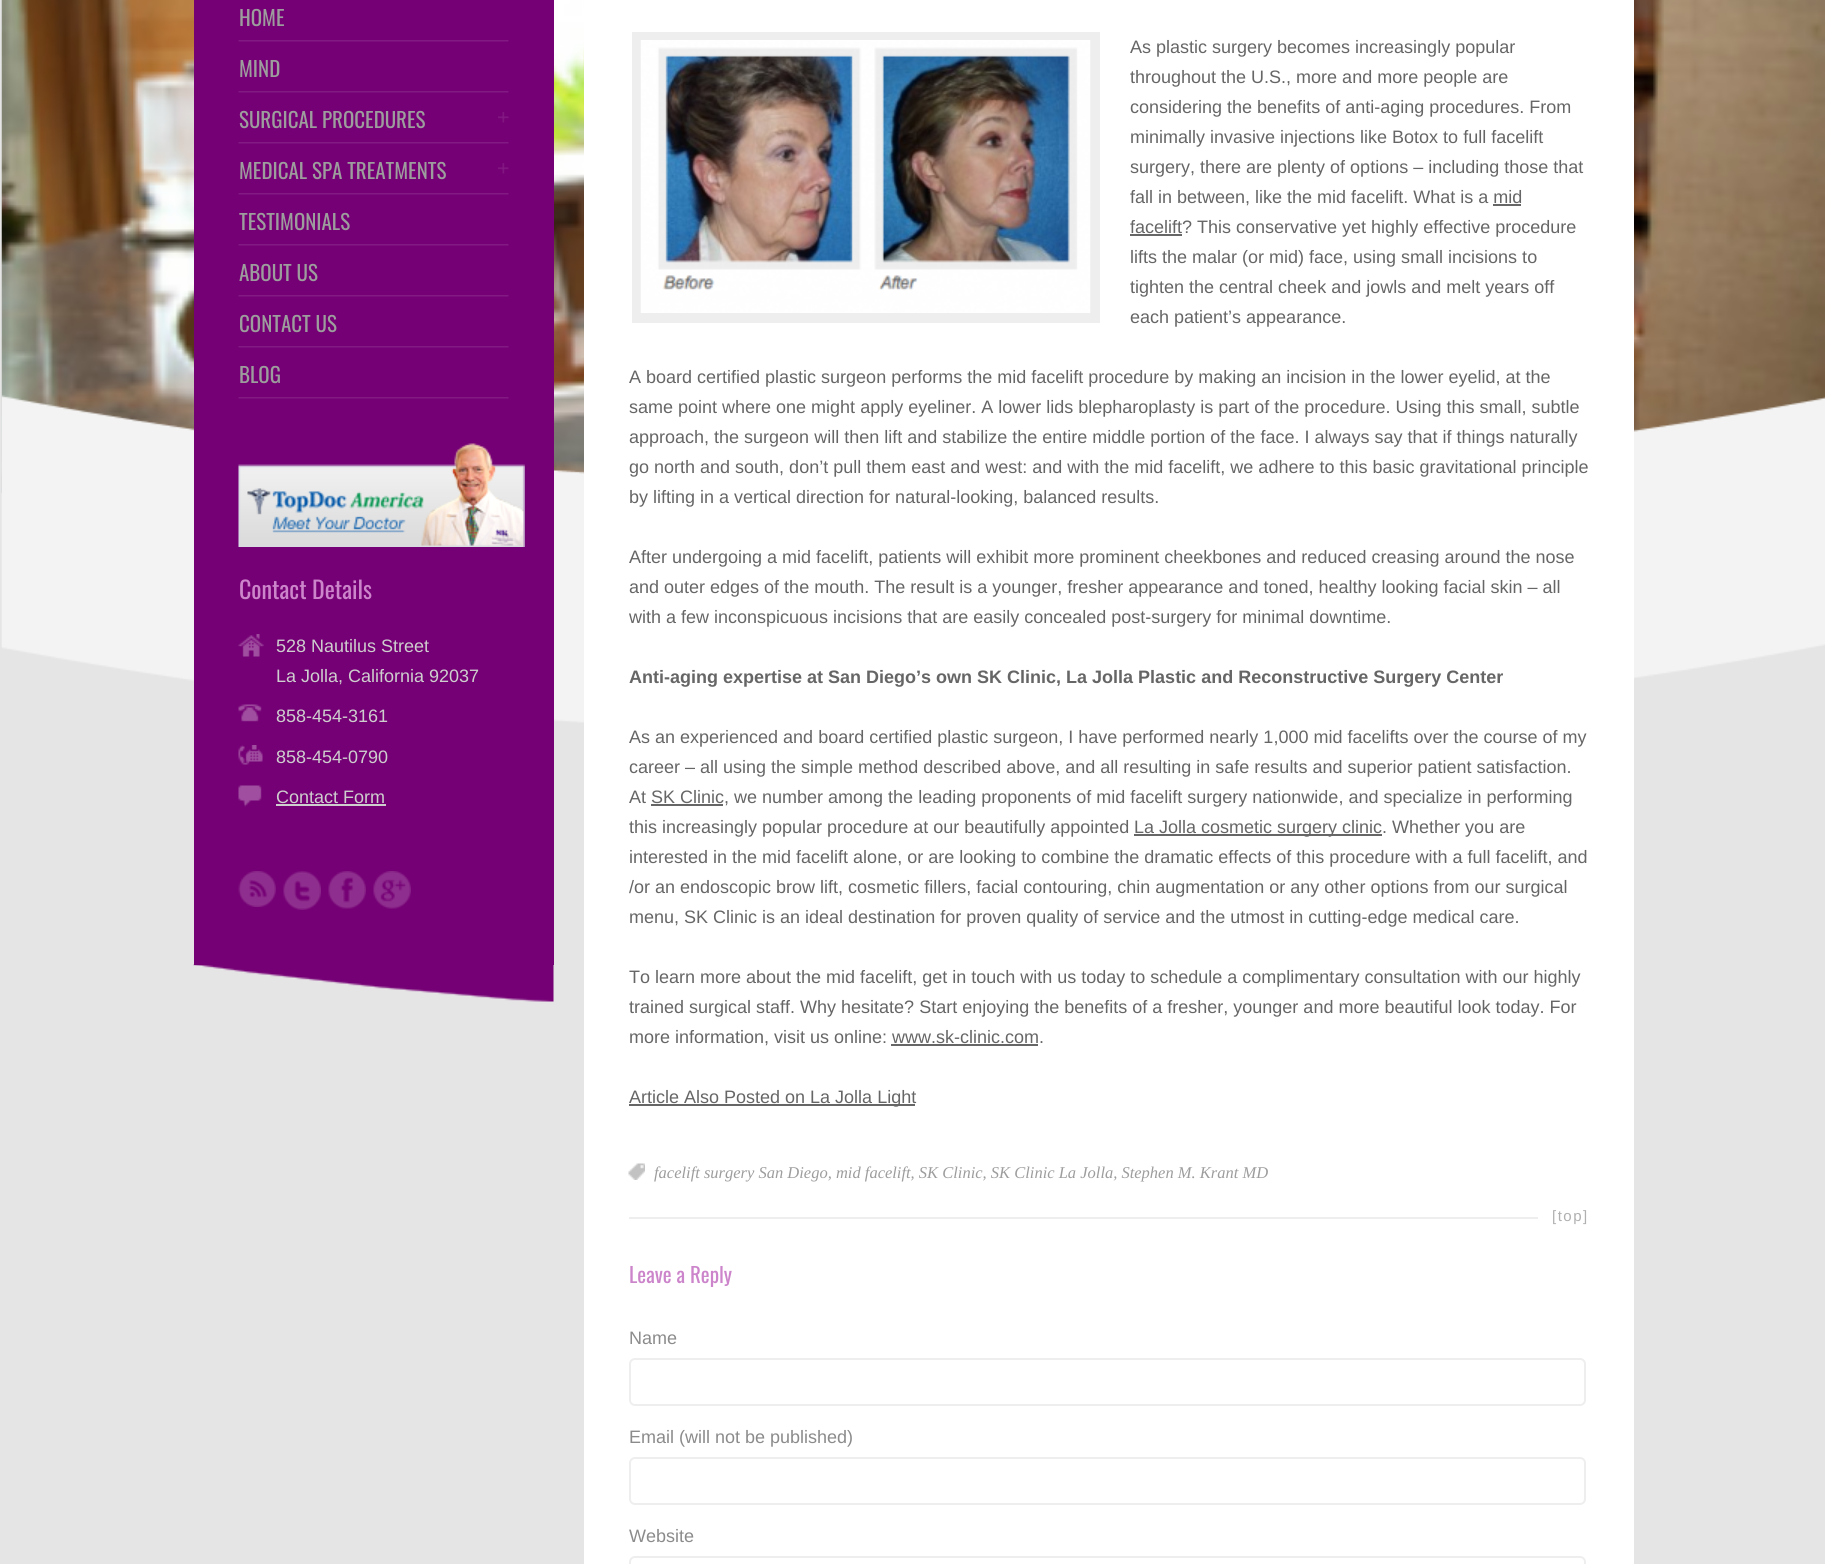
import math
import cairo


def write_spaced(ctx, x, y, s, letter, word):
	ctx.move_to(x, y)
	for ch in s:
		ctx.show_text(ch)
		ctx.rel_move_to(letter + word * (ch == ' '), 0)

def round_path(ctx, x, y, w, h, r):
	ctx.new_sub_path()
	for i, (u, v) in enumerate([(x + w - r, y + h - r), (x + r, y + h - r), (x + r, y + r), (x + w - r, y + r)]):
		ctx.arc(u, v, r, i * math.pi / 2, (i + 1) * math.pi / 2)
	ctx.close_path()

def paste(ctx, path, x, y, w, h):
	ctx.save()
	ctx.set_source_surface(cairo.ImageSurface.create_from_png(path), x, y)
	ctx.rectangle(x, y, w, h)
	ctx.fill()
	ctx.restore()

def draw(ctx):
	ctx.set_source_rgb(0.898, 0.898, 0.898)
	ctx.paint()
	paste(ctx, 'media/1.png', 1, 0, 1824, 493)
	paste(ctx, 'media/2.png', 1, 395, 1824, 328)
	ctx.set_source_rgb(0.459, 0, 0.459)
	ctx.rectangle(194, 0, 360, 965)
	ctx.fill()
	paste(ctx, 'media/3.png', 238, 40, 271, 2)
	ctx.select_font_face('Oswald')
	ctx.set_font_size(21)
	ctx.set_source_rgb(0.616, 0.616, 0.616)
	ctx.move_to(239, 26)
	ctx.show_text('HOME')
	paste(ctx, 'media/3.png', 238, 91, 271, 2)
	ctx.move_to(239, 77)
	ctx.show_text('MIND')
	paste(ctx, 'media/3.png', 238, 142, 271, 2)
	paste(ctx, 'media/4.png', 498, 112, 11, 11)
	ctx.move_to(239, 128)
	ctx.show_text('SURGICAL PROCEDURES')
	paste(ctx, 'media/3.png', 238, 193, 271, 2)
	paste(ctx, 'media/4.png', 498, 163, 11, 11)
	ctx.move_to(239, 179)
	ctx.show_text('MEDICAL SPA TREATMENTS')
	paste(ctx, 'media/3.png', 238, 244, 271, 2)
	ctx.move_to(239, 230)
	ctx.show_text('TESTIMONIALS')
	paste(ctx, 'media/3.png', 238, 295, 271, 2)
	ctx.move_to(239, 281)
	ctx.show_text('ABOUT US')
	paste(ctx, 'media/3.png', 238, 346, 271, 2)
	ctx.move_to(239, 332)
	ctx.show_text('CONTACT US')
	paste(ctx, 'media/3.png', 238, 397, 271, 2)
	ctx.move_to(239, 383)
	ctx.show_text('BLOG')
	paste(ctx, 'media/5.png', 238, 443, 287, 104)
	ctx.set_font_size(24)
	ctx.set_source_rgb(0.8, 0.522, 0.792)
	ctx.move_to(239, 599)
	ctx.show_text('Contact Details')
	paste(ctx, 'media/6.png', 238, 634, 26, 23)
	ctx.select_font_face('Liberation Sans')
	ctx.set_font_size(18)
	ctx.set_source_rgb(0.808, 0.808, 0.808)
	ctx.move_to(276, 652)
	ctx.show_text('528 Nautilus Street')
	ctx.move_to(276, 682)
	ctx.show_text('La Jolla, California 92037')
	paste(ctx, 'media/7.png', 238, 704, 24, 18)
	ctx.move_to(276, 722)
	ctx.show_text('858-454-3161')
	paste(ctx, 'media/8.png', 238, 745, 25, 20)
	ctx.move_to(276, 763)
	ctx.show_text('858-454-0790')
	paste(ctx, 'media/9.png', 238, 785, 24, 22)
	ctx.move_to(276, 803)
	ctx.show_text('Contact Form')
	ctx.rectangle(276, 804, 110, 2)
	ctx.fill()
	paste(ctx, 'media/10.png', 238, 871, 38, 36)
	paste(ctx, 'media/11.png', 283, 871, 38, 39)
	paste(ctx, 'media/12.png', 328, 871, 38, 38)
	paste(ctx, 'media/13.png', 373, 871, 38, 38)
	paste(ctx, 'media/14.png', 193, 964, 361, 38)
	ctx.set_source_rgb(1, 1, 1)
	ctx.rectangle(584, 0, 1050, 1564)
	ctx.fill()
	ctx.set_source_rgb(0.933, 0.933, 0.933)
	ctx.rectangle(632, 32, 468, 291)
	ctx.fill()
	paste(ctx, 'media/15.png', 640, 40, 451, 273)
	ctx.set_source_rgb(0.4, 0.4, 0.4)
	for x, y, s in [
		(1130, 53, 'As plastic surgery becomes increasingly popular'),
		(1130, 83, 'throughout the U.S., more and more people are'),
		(1130, 113, 'considering the benefits of anti-aging procedures. From'),
		(1130, 143, 'minimally invasive injections like Botox to full facelift'),
		(1130, 173, 'surgery, there are plenty of options – including those that'),
		(1130, 203, 'fall in between, like the mid facelift. What is a mid'),
	]:
		ctx.move_to(x, y)
		ctx.show_text(s)
	ctx.rectangle(1130, 234, 52, 2)
	ctx.fill()
	ctx.move_to(1130, 233)
	ctx.show_text('facelift? This conservative yet highly effective procedure')
	ctx.rectangle(1493, 204, 28, 2)
	ctx.fill()
	for x, y, s in [
		(1130, 263, 'lifts the malar (or mid) face, using small incisions to'),
		(1130, 293, 'tighten the central cheek and jowls and melt years off'),
		(1130, 323, 'each patient’s appearance.'),
		(629, 383, 'A board certified plastic surgeon performs the mid facelift procedure by making an incision in the lower eyelid, at the'),
		(629, 413, 'same point where one might apply eyeliner. A lower lids blepharoplasty is part of the procedure. Using this small, subtle'),
		(629, 443, 'approach, the surgeon will then lift and stabilize the entire middle portion of the face. I always say that if things naturally'),
		(629, 473, 'go north and south, don’t pull them east and west: and with the mid facelift, we adhere to this basic gravitational principle'),
		(629, 503, 'by lifting in a vertical direction for natural-looking, balanced results.'),
		(629, 563, 'After undergoing a mid facelift, patients will exhibit more prominent cheekbones and reduced creasing around the nose'),
		(629, 593, 'and outer edges of the mouth. The result is a younger, fresher appearance and toned, healthy looking facial skin – all'),
		(629, 623, 'with a few inconspicuous incisions that are easily concealed post-surgery for minimal downtime.'),
	]:
		ctx.move_to(x, y)
		ctx.show_text(s)
	ctx.select_font_face('Liberation Sans', cairo.FONT_SLANT_NORMAL, cairo.FONT_WEIGHT_BOLD)
	ctx.move_to(629, 683)
	ctx.show_text('Anti-aging expertise at San Diego’s own SK Clinic, La Jolla Plastic and Reconstructive Surgery Center')
	ctx.select_font_face('Liberation Sans')
	for x, y, s in [
		(629, 743, 'As an experienced and board certified plastic surgeon, I have performed nearly 1,000 mid facelifts over the course of my'),
		(629, 773, 'career – all using the simple method described above, and all resulting in safe results and superior patient satisfaction.'),
		(629, 803, 'At SK Clinic, we number among the leading proponents of mid facelift surgery nationwide, and specialize in performing'),
	]:
		ctx.move_to(x, y)
		ctx.show_text(s)
	ctx.rectangle(651, 804, 72, 2)
	ctx.fill()
	ctx.move_to(629, 833)
	ctx.show_text('this increasingly popular procedure at our beautifully appointed')
	ctx.rectangle(1134, 834, 248, 2)
	ctx.fill()
	for x, y, s in [
		(1134, 833, 'La Jolla cosmetic surgery clinic. Whether you are'),
		(629, 863, 'interested in the mid facelift alone, or are looking to combine the dramatic effects of this procedure with a full facelift, and'),
		(629, 893, '/or an endoscopic brow lift, cosmetic fillers, facial contouring, chin augmentation or any other options from our surgical'),
		(629, 923, 'menu, SK Clinic is an ideal destination for proven quality of service and the utmost in cutting-edge medical care.'),
		(629, 983, 'To learn more about the mid facelift, get in touch with us today to schedule a complimentary consultation with our highly'),
		(629, 1013, 'trained surgical staff. Why hesitate? Start enjoying the benefits of a fresher, younger and more beautiful look today. For'),
		(629, 1043, 'more information, visit us online: www.sk-clinic.com.'),
	]:
		ctx.move_to(x, y)
		ctx.show_text(s)
	ctx.rectangle(891, 1044, 147, 2)
	ctx.fill()
	ctx.rectangle(629, 1104, 286, 2)
	ctx.fill()
	ctx.move_to(629, 1103)
	ctx.show_text('Article Also Posted on La Jolla Light')
	paste(ctx, 'media/16.png', 628, 1163, 17, 17)
	ctx.select_font_face('Liberation Serif', cairo.FONT_SLANT_ITALIC)
	ctx.set_font_size(16.5)
	ctx.set_source_rgb(0.616, 0.616, 0.616)
	ctx.move_to(654, 1178)
	ctx.show_text('facelift surgery San Diego, mid facelift, SK Clinic, SK Clinic La Jolla, Stephen M. Krant MD')
	ctx.set_source_rgb(0.933, 0.933, 0.933)
	ctx.rectangle(629, 1217, 909, 2)
	ctx.fill()
	ctx.select_font_face('Liberation Sans')
	ctx.set_font_size(15)
	ctx.set_source_rgb(0.69, 0.69, 0.69)
	write_spaced(ctx, 1552, 1221, '[top]', 1.5, 0)
	ctx.select_font_face('Oswald')
	ctx.set_font_size(21)
	ctx.set_source_rgb(0.8, 0.522, 0.792)
	ctx.move_to(629, 1283)
	ctx.show_text('Leave a Reply')
	ctx.select_font_face('Liberation Sans')
	ctx.set_font_size(18)
	ctx.set_source_rgb(0.545, 0.545, 0.545)
	ctx.move_to(629, 1344)
	ctx.show_text('Name')
	round_path(ctx, 630, 1359, 955, 46, 5)
	ctx.set_source_rgb(0.933, 0.933, 0.933)
	ctx.stroke()
	ctx.set_source_rgb(0.545, 0.545, 0.545)
	ctx.move_to(629, 1443)
	ctx.show_text('Email (will not be published)')
	round_path(ctx, 630, 1458, 955, 46, 5)
	ctx.set_source_rgb(0.933, 0.933, 0.933)
	ctx.stroke()
	ctx.set_source_rgb(0.545, 0.545, 0.545)
	ctx.move_to(629, 1542)
	ctx.show_text('Website')
	round_path(ctx, 630, 1557, 955, 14, 5)
	ctx.set_source_rgb(0.933, 0.933, 0.933)
	ctx.stroke()


surface = cairo.ImageSurface(cairo.FORMAT_RGB24, 1825, 1564)
ctx = cairo.Context(surface)
options = cairo.FontOptions()
options.set_hint_metrics(cairo.HINT_METRICS_OFF)
options.set_hint_style(cairo.HINT_STYLE_NONE)
ctx.set_font_options(options)
ctx.set_miter_limit(4)
draw(ctx)
surface.write_to_png('image.png')
